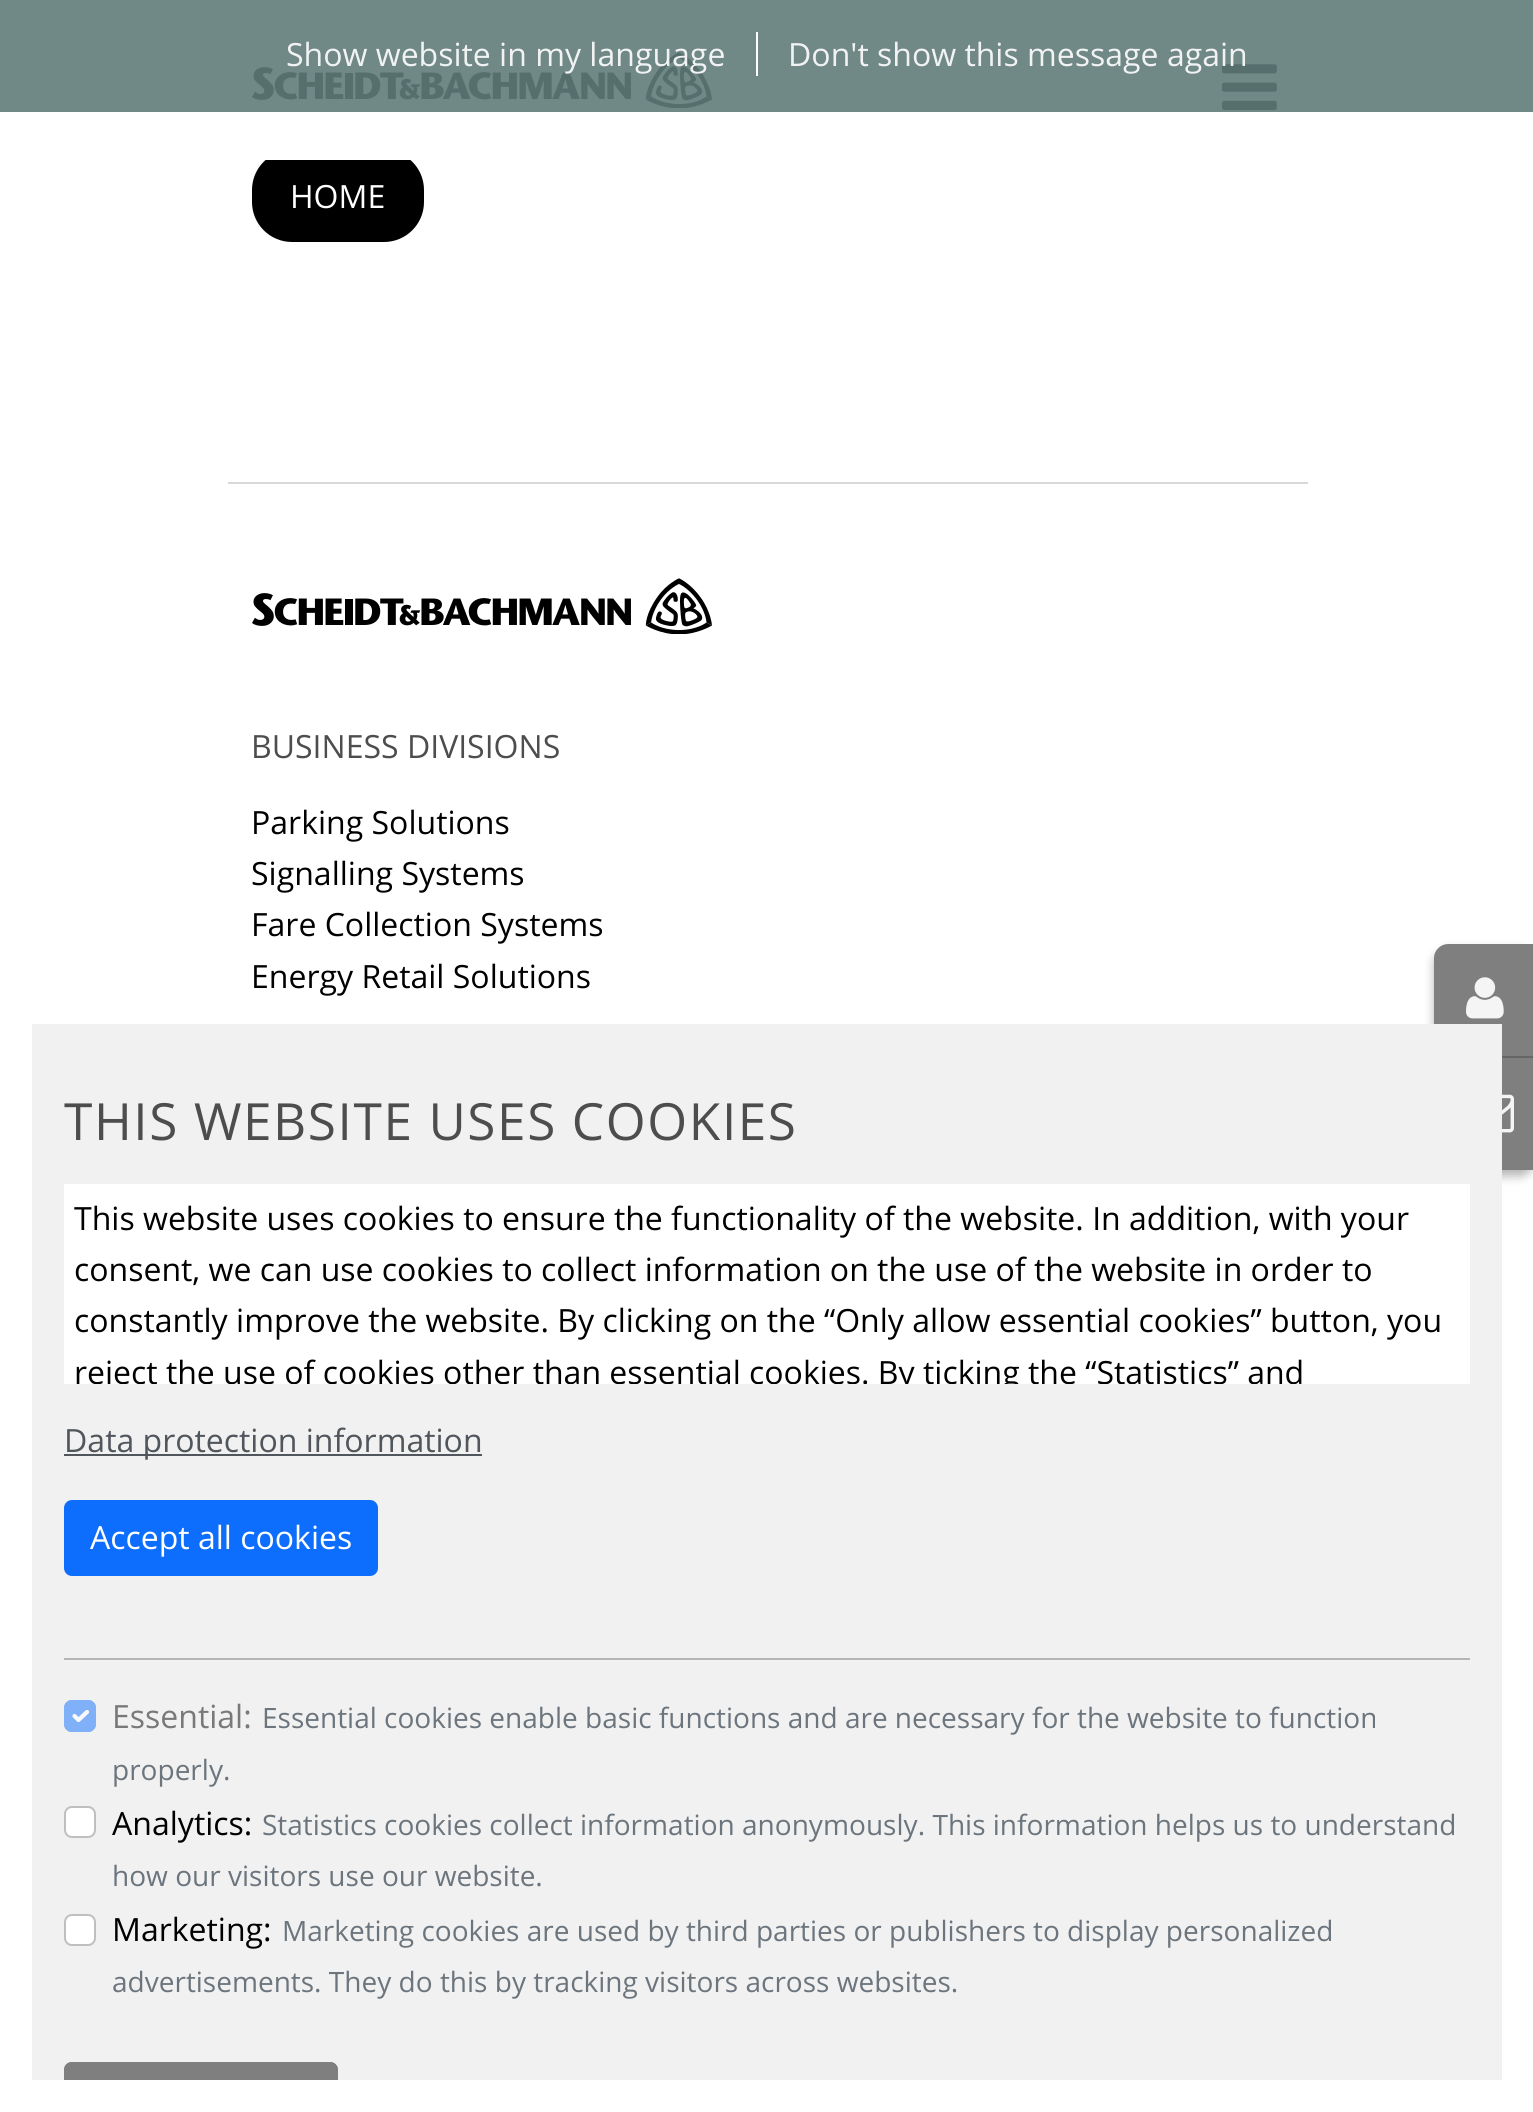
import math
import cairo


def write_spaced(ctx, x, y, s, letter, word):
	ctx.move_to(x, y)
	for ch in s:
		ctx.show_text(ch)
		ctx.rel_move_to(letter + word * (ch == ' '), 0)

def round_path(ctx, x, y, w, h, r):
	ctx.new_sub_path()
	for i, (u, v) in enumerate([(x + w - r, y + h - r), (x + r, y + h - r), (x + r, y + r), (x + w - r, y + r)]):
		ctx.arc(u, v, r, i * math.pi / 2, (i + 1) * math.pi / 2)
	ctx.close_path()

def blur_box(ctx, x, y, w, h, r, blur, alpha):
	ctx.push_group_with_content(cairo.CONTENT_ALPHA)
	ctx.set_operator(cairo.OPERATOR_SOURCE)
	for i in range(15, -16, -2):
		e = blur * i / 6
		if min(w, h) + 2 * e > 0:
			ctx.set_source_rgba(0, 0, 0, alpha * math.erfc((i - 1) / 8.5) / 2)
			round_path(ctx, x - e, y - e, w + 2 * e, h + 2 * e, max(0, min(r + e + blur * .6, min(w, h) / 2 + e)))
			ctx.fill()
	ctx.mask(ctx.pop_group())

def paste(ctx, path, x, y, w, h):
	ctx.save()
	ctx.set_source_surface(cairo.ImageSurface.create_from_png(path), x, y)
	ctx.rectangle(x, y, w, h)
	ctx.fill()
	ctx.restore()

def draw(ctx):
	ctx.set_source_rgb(1, 1, 1)
	ctx.paint()
	ctx.set_source_rgb(0.439, 0.533, 0.525)
	ctx.rectangle(0, 0, 1533, 112)
	ctx.fill()
	paste(ctx, 'media/1.png', 252, 52, 460, 56)
	ctx.select_font_face('Open Sans')
	ctx.set_font_size(32)
	ctx.set_source_rgb(0.945, 0.953, 0.953)
	ctx.move_to(286, 66)
	ctx.show_text('Show website in my language')
	ctx.set_source_rgb(1, 1, 1)
	ctx.rectangle(756, 32, 2, 44)
	ctx.fill()
	paste(ctx, 'media/2.png', 1222, 64, 55, 46)
	ctx.set_source_rgb(0.945, 0.953, 0.953)
	ctx.move_to(788, 66)
	ctx.show_text('Don\'t show this message again')
	ctx.set_source_rgb(0, 0, 0)
	round_path(ctx, 257, 155, 162, 82, 35)
	ctx.fill_preserve()
	ctx.set_line_width(10)
	ctx.stroke()
	ctx.set_source_rgb(1, 1, 1)
	ctx.rectangle(265, 150, 146, 10)
	ctx.fill()
	ctx.move_to(290, 208)
	ctx.show_text('HOME')
	ctx.set_source_rgb(0.851, 0.851, 0.851)
	ctx.rectangle(228, 482, 1080, 2)
	ctx.fill()
	paste(ctx, 'media/3.png', 252, 578, 460, 56)
	ctx.set_source_rgb(0.302, 0.302, 0.302)
	ctx.move_to(251, 758)
	ctx.show_text('BUSINESS DIVISIONS')
	ctx.set_source_rgb(0, 0, 0)
	for x, y, s in [
		(251, 834, 'Parking Solutions'),
		(251, 885, 'Signalling Systems'),
		(251, 936, 'Fare Collection Systems'),
		(251, 988, 'Energy Retail Solutions'),
	]:
		ctx.move_to(x, y)
		ctx.show_text(s)
	ctx.set_source_rgb(0, 0, 0)
	blur_box(ctx, 1434, 950, 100, 226, 14, 5, 0.3)
	ctx.set_source_rgb(0.498, 0.498, 0.498)
	ctx.new_path()
	ctx.move_to(1448, 944)
	ctx.line_to(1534, 944)
	ctx.line_to(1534, 1170)
	ctx.line_to(1448, 1170)
	ctx.curve_to(1440.5, 1170, 1434, 1163.5, 1434, 1156)
	ctx.line_to(1434, 958)
	ctx.curve_to(1434, 950.5, 1440.5, 944, 1448, 944)
	ctx.close_path()
	ctx.fill()
	ctx.set_source_rgb(0.4, 0.4, 0.4)
	ctx.rectangle(1502, 1056, 31, 2)
	ctx.fill()
	paste(ctx, 'media/4.png', 1466, 977, 38, 42)
	paste(ctx, 'media/5.png', 1502, 1094, 12, 39)
	ctx.set_source_rgb(0.945, 0.945, 0.945)
	ctx.rectangle(32, 1024, 1470, 1056)
	ctx.fill()
	ctx.set_font_size(51.25)
	ctx.set_source_rgb(0.302, 0.302, 0.302)
	write_spaced(ctx, 64, 1140, 'THIS WEBSITE USES COOKIES', 1.6, 0)
	ctx.set_source_rgb(1, 1, 1)
	ctx.rectangle(64, 1184, 1406, 200)
	ctx.fill()
	ctx.set_font_size(32)
	ctx.set_source_rgb(0, 0, 0)
	for x, y, s in [
		(74, 1230, 'This website uses cookies to ensure the functionality of the website. In addition, with your'),
		(74, 1281, 'consent, we can use cookies to collect information on the use of the website in order to'),
		(74, 1332, 'constantly improve the website. By clicking on the “Only allow essential cookies” button, you'),
	]:
		ctx.move_to(x, y)
		ctx.show_text(s)
	ctx.save()
	ctx.rectangle(64, 1184, 1406, 200)
	ctx.clip()
	ctx.move_to(74, 1384)
	ctx.show_text('reject the use of cookies other than essential cookies. By ticking the “Statistics” and')
	ctx.restore()
	ctx.set_source_rgb(0.318, 0.337, 0.365)
	ctx.rectangle(64, 1454, 418, 2)
	ctx.fill()
	ctx.move_to(64, 1452)
	ctx.show_text('Data protection information')
	ctx.set_source_rgb(0.051, 0.431, 0.992)
	round_path(ctx, 65, 1501, 312, 74, 7)
	ctx.fill_preserve()
	ctx.set_line_width(2)
	ctx.stroke()
	ctx.set_source_rgb(1, 1, 1)
	ctx.move_to(90, 1549)
	ctx.show_text('Accept all cookies')
	ctx.set_source_rgb(0.71, 0.71, 0.71)
	ctx.rectangle(64, 1658, 1406, 2)
	ctx.fill()
	ctx.set_source_rgb(0.498, 0.69, 0.969)
	round_path(ctx, 64, 1700, 32, 32, 8)
	ctx.fill()
	ctx.new_path()
	ctx.move_to(74.5, 1716)
	ctx.line_to(78.5, 1720)
	ctx.line_to(87, 1712)
	ctx.set_source_rgb(0.973, 0.973, 0.973)
	ctx.set_line_width(4.2)
	ctx.set_line_cap(cairo.LINE_CAP_ROUND)
	ctx.set_line_join(cairo.LINE_JOIN_ROUND)
	ctx.stroke()
	round_path(ctx, 65, 1701, 30, 30, 7)
	ctx.set_source_rgb(0.498, 0.69, 0.969)
	ctx.set_line_width(2)
	ctx.set_line_cap(cairo.LINE_CAP_BUTT)
	ctx.set_line_join(cairo.LINE_JOIN_MITER)
	ctx.stroke()
	ctx.set_source_rgb(0.475, 0.475, 0.475)
	ctx.move_to(112, 1728)
	ctx.show_text('Essential:')
	ctx.set_font_size(28)
	ctx.set_source_rgb(0.424, 0.459, 0.49)
	ctx.move_to(262, 1728)
	ctx.show_text('Essential cookies enable basic functions and are necessary for the website to function')
	ctx.move_to(112, 1780)
	ctx.show_text('properly.')
	ctx.set_source_rgb(1, 1, 1)
	round_path(ctx, 64, 1806, 32, 32, 8)
	ctx.fill()
	round_path(ctx, 65, 1807, 30, 30, 7)
	ctx.set_source_rgba(0, 0, 0, 0.25)
	ctx.stroke()
	ctx.set_font_size(32)
	ctx.set_source_rgb(0, 0, 0)
	ctx.move_to(112, 1835)
	ctx.show_text('Analytics:')
	ctx.set_font_size(28)
	ctx.set_source_rgb(0.424, 0.459, 0.49)
	ctx.move_to(262, 1835)
	ctx.show_text('Statistics cookies collect information anonymously. This information helps us to understand')
	ctx.move_to(112, 1886)
	ctx.show_text('how our visitors use our website.')
	ctx.set_source_rgb(1, 1, 1)
	round_path(ctx, 64, 1914, 32, 32, 8)
	ctx.fill()
	round_path(ctx, 65, 1915, 30, 30, 7)
	ctx.set_source_rgba(0, 0, 0, 0.25)
	ctx.stroke()
	ctx.set_font_size(32)
	ctx.set_source_rgb(0, 0, 0)
	ctx.move_to(112, 1941)
	ctx.show_text('Marketing:')
	ctx.set_font_size(28)
	ctx.set_source_rgb(0.424, 0.459, 0.49)
	ctx.move_to(282, 1941)
	ctx.show_text('Marketing cookies are used by third parties or publishers to display personalized')
	ctx.move_to(112, 1992)
	ctx.show_text('advertisements. They do this by tracking visitors across websites.')
	ctx.set_source_rgb(0.498, 0.498, 0.498)
	ctx.new_path()
	ctx.move_to(72, 2062)
	ctx.line_to(330, 2062)
	ctx.curve_to(334.5, 2062, 338, 2065.5, 338, 2070)
	ctx.line_to(338, 2080)
	ctx.line_to(64, 2080)
	ctx.line_to(64, 2070)
	ctx.curve_to(64, 2065.5, 67.5, 2062, 72, 2062)
	ctx.close_path()
	ctx.fill()
	ctx.save()
	ctx.rectangle(32, 1024, 1470, 1056)
	ctx.clip()
	round_path(ctx, 65, 2063, 272, 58, 7)
	ctx.stroke()
	ctx.restore()


surface = cairo.ImageSurface(cairo.FORMAT_RGB24, 1533, 2112)
ctx = cairo.Context(surface)
options = cairo.FontOptions()
options.set_hint_metrics(cairo.HINT_METRICS_OFF)
options.set_hint_style(cairo.HINT_STYLE_NONE)
ctx.set_font_options(options)
ctx.set_miter_limit(4)
draw(ctx)
surface.write_to_png('image.png')
